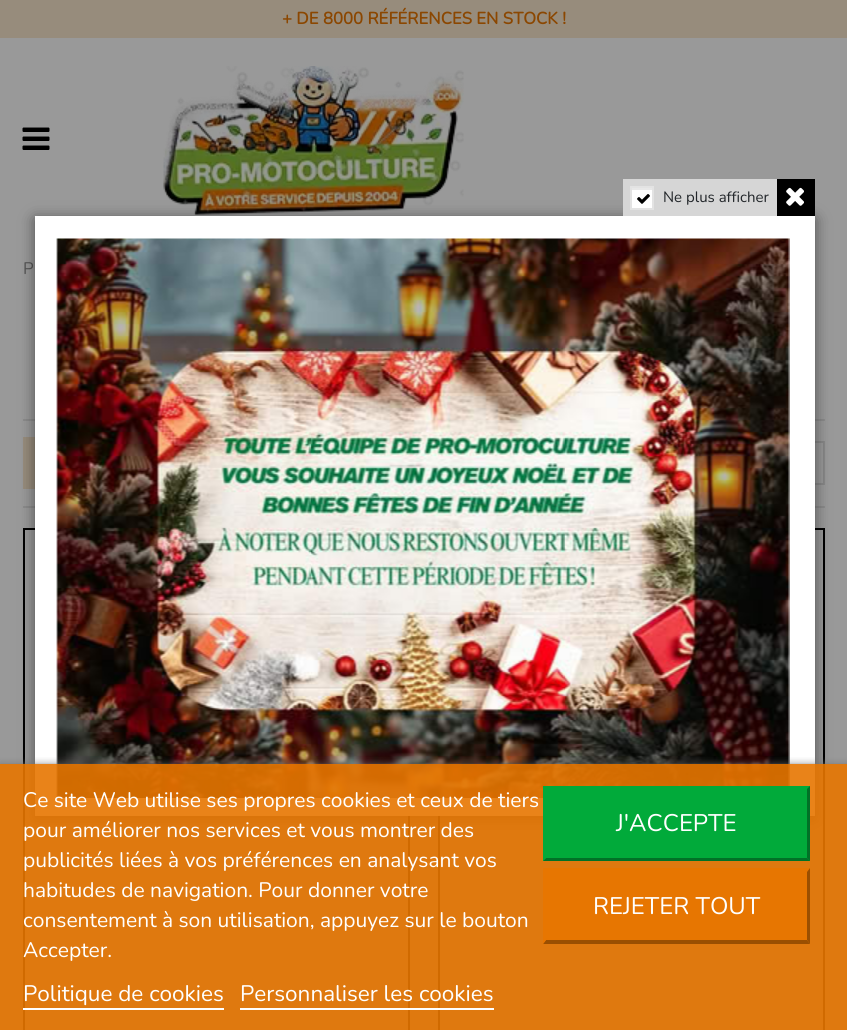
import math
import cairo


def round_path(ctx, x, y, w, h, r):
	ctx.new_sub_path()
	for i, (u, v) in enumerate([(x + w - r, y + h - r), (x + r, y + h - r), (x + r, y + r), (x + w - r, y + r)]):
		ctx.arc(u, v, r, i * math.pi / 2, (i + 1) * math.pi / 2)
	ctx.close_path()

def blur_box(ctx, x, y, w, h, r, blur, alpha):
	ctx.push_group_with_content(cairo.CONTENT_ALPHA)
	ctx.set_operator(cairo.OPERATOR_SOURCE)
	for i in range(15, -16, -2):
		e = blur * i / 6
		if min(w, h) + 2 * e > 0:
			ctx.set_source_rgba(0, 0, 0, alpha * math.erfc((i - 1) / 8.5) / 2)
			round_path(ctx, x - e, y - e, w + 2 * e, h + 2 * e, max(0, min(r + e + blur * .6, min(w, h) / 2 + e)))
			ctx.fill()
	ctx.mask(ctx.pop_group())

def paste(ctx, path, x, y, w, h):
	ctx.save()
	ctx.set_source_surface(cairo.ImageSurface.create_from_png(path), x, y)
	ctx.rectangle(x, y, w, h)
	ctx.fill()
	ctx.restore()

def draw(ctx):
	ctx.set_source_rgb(0.6, 0.6, 0.6)
	ctx.paint()
	ctx.set_source_rgb(0.592, 0.549, 0.486)
	ctx.rectangle(0, 0, 847, 38)
	ctx.fill()
	ctx.select_font_face('Nunito', cairo.FONT_SLANT_NORMAL, cairo.FONT_WEIGHT_BOLD)
	ctx.set_font_size(16.75)
	ctx.set_source_rgb(0.545, 0.278, 0.004)
	ctx.move_to(282, 24)
	ctx.show_text('+ DE 8000 RÉFÉRENCES EN STOCK !')
	paste(ctx, 'media/1.png', 22, 127, 28, 23)
	paste(ctx, 'media/2.png', 163, 66, 301, 149)
	ctx.select_font_face('Nunito ExtraLight')
	ctx.set_source_rgb(0.337, 0.337, 0.337)
	ctx.move_to(23, 274)
	ctx.show_text('P')
	ctx.set_source_rgb(0.545, 0.545, 0.545)
	ctx.rectangle(23, 419, 802, 2)
	ctx.rectangle(23, 506, 802, 2)
	ctx.fill()
	ctx.set_source_rgb(0.592, 0.549, 0.486)
	ctx.rectangle(23, 437, 12, 52)
	ctx.fill()
	ctx.rectangle(759, 442, 65, 42)
	ctx.set_source_rgb(0.533, 0.533, 0.533)
	ctx.stroke()
	ctx.rectangle(24, 529, 385, 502)
	ctx.set_source_rgb(0, 0, 0)
	ctx.stroke()
	ctx.rectangle(439, 529, 385, 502)
	ctx.stroke()
	ctx.set_source_rgb(0, 0, 0)
	blur_box(ctx, 35, 219, 780, 600, 0, 7.5, 0.5)
	ctx.set_source_rgb(1, 1, 1)
	ctx.rectangle(35, 216, 780, 600)
	ctx.fill()
	paste(ctx, 'media/5.png', 56, 238, 734, 560)
	ctx.save()
	ctx.rectangle(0, 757, 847, 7)
	ctx.clip()
	ctx.set_source_rgb(0.439, 0.439, 0.439)
	blur_box(ctx, 0, 765, 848, 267, 0, 4, 1)
	ctx.restore()
	ctx.set_source_rgba(0.906, 0.463, 0.004, 0.9)
	ctx.rectangle(0, 764, 847, 266)
	ctx.fill()
	ctx.set_font_size(21)
	ctx.set_source_rgb(1, 1, 1)
	for x, y, s in [
		(23, 807, 'Ce site Web utilise ses propres cookies et ceux de tiers'),
		(23, 837, 'pour améliorer nos services et vous montrer des'),
		(23, 867, 'publicités liées à vos préférences en analysant vos'),
		(23, 897, 'habitudes de navigation. Pour donner votre'),
		(23, 927, 'consentement à son utilisation, appuyez sur le bouton'),
		(23, 957, 'Accepter.'),
	]:
		ctx.move_to(x, y)
		ctx.show_text(s)
	ctx.set_font_size(22.5)
	ctx.move_to(23, 1001)
	ctx.show_text('Politique de cookies')
	ctx.rectangle(23, 1008, 201, 2)
	ctx.fill()
	ctx.move_to(240, 1001)
	ctx.show_text('Personnaliser les cookies')
	ctx.rectangle(240, 1008, 254, 2)
	ctx.fill()
	ctx.set_source_rgb(0.004, 0.667, 0.227)
	ctx.rectangle(543, 786, 267, 75)
	ctx.fill()
	ctx.set_source_rgb(0.004, 0.443, 0.153)
	ctx.new_path()
	ctx.move_to(810, 786)
	ctx.line_to(810, 861)
	ctx.line_to(807, 858)
	ctx.line_to(807, 789)
	ctx.close_path()
	ctx.fill()
	ctx.new_path()
	ctx.move_to(810, 861)
	ctx.line_to(543, 861)
	ctx.line_to(546, 858)
	ctx.line_to(807, 858)
	ctx.close_path()
	ctx.fill()
	ctx.set_source_rgb(0.004, 0.667, 0.227)
	ctx.new_path()
	ctx.move_to(543, 861)
	ctx.line_to(543, 786)
	ctx.line_to(546, 789)
	ctx.line_to(546, 858)
	ctx.close_path()
	ctx.fill()
	ctx.set_font_size(24)
	ctx.set_source_rgb(1, 1, 1)
	ctx.move_to(616, 831)
	ctx.show_text('J\'ACCEPTE')
	ctx.set_source_rgb(0.906, 0.463, 0.004)
	ctx.rectangle(543, 869, 267, 75)
	ctx.fill()
	ctx.new_path()
	ctx.move_to(543, 868)
	ctx.line_to(810, 868)
	ctx.line_to(807, 872)
	ctx.line_to(546, 872)
	ctx.close_path()
	ctx.fill()
	ctx.set_source_rgb(0.604, 0.31, 0.004)
	ctx.new_path()
	ctx.move_to(810, 868)
	ctx.line_to(810, 944)
	ctx.line_to(807, 940)
	ctx.line_to(807, 872)
	ctx.close_path()
	ctx.fill()
	ctx.new_path()
	ctx.move_to(810, 944)
	ctx.line_to(543, 944)
	ctx.line_to(546, 940)
	ctx.line_to(807, 940)
	ctx.close_path()
	ctx.fill()
	ctx.set_source_rgb(0.906, 0.463, 0.004)
	ctx.new_path()
	ctx.move_to(543, 944)
	ctx.line_to(543, 868)
	ctx.line_to(546, 872)
	ctx.line_to(546, 940)
	ctx.close_path()
	ctx.fill()
	ctx.set_source_rgb(1, 1, 1)
	ctx.move_to(593, 914)
	ctx.show_text('REJETER TOUT')
	ctx.set_source_rgb(0.839, 0.839, 0.839)
	ctx.rectangle(623, 179, 154, 37)
	ctx.fill()
	ctx.set_source_rgb(1, 1, 1)
	ctx.rectangle(632, 190, 20, 18)
	ctx.fill()
	ctx.set_source_rgb(0.91, 0.91, 0.91)
	ctx.rectangle(632, 188, 21, 2)
	ctx.fill()
	ctx.rectangle(631, 187, 22, 22)
	ctx.set_source_rgb(0.89, 0.89, 0.89)
	ctx.stroke()
	paste(ctx, 'media/3.png', 637, 194, 13, 10)
	ctx.set_font_size(15)
	ctx.set_source_rgb(0.129, 0.145, 0.161)
	ctx.move_to(663, 202)
	ctx.show_text('Ne plus afficher')
	ctx.set_source_rgb(0, 0, 0)
	ctx.rectangle(777, 179, 38, 37)
	ctx.fill()
	paste(ctx, 'media/4.png', 786, 187, 18, 19)


surface = cairo.ImageSurface(cairo.FORMAT_RGB24, 847, 1030)
ctx = cairo.Context(surface)
options = cairo.FontOptions()
options.set_hint_metrics(cairo.HINT_METRICS_OFF)
options.set_hint_style(cairo.HINT_STYLE_NONE)
ctx.set_font_options(options)
ctx.set_miter_limit(4)
draw(ctx)
surface.write_to_png('image.png')
